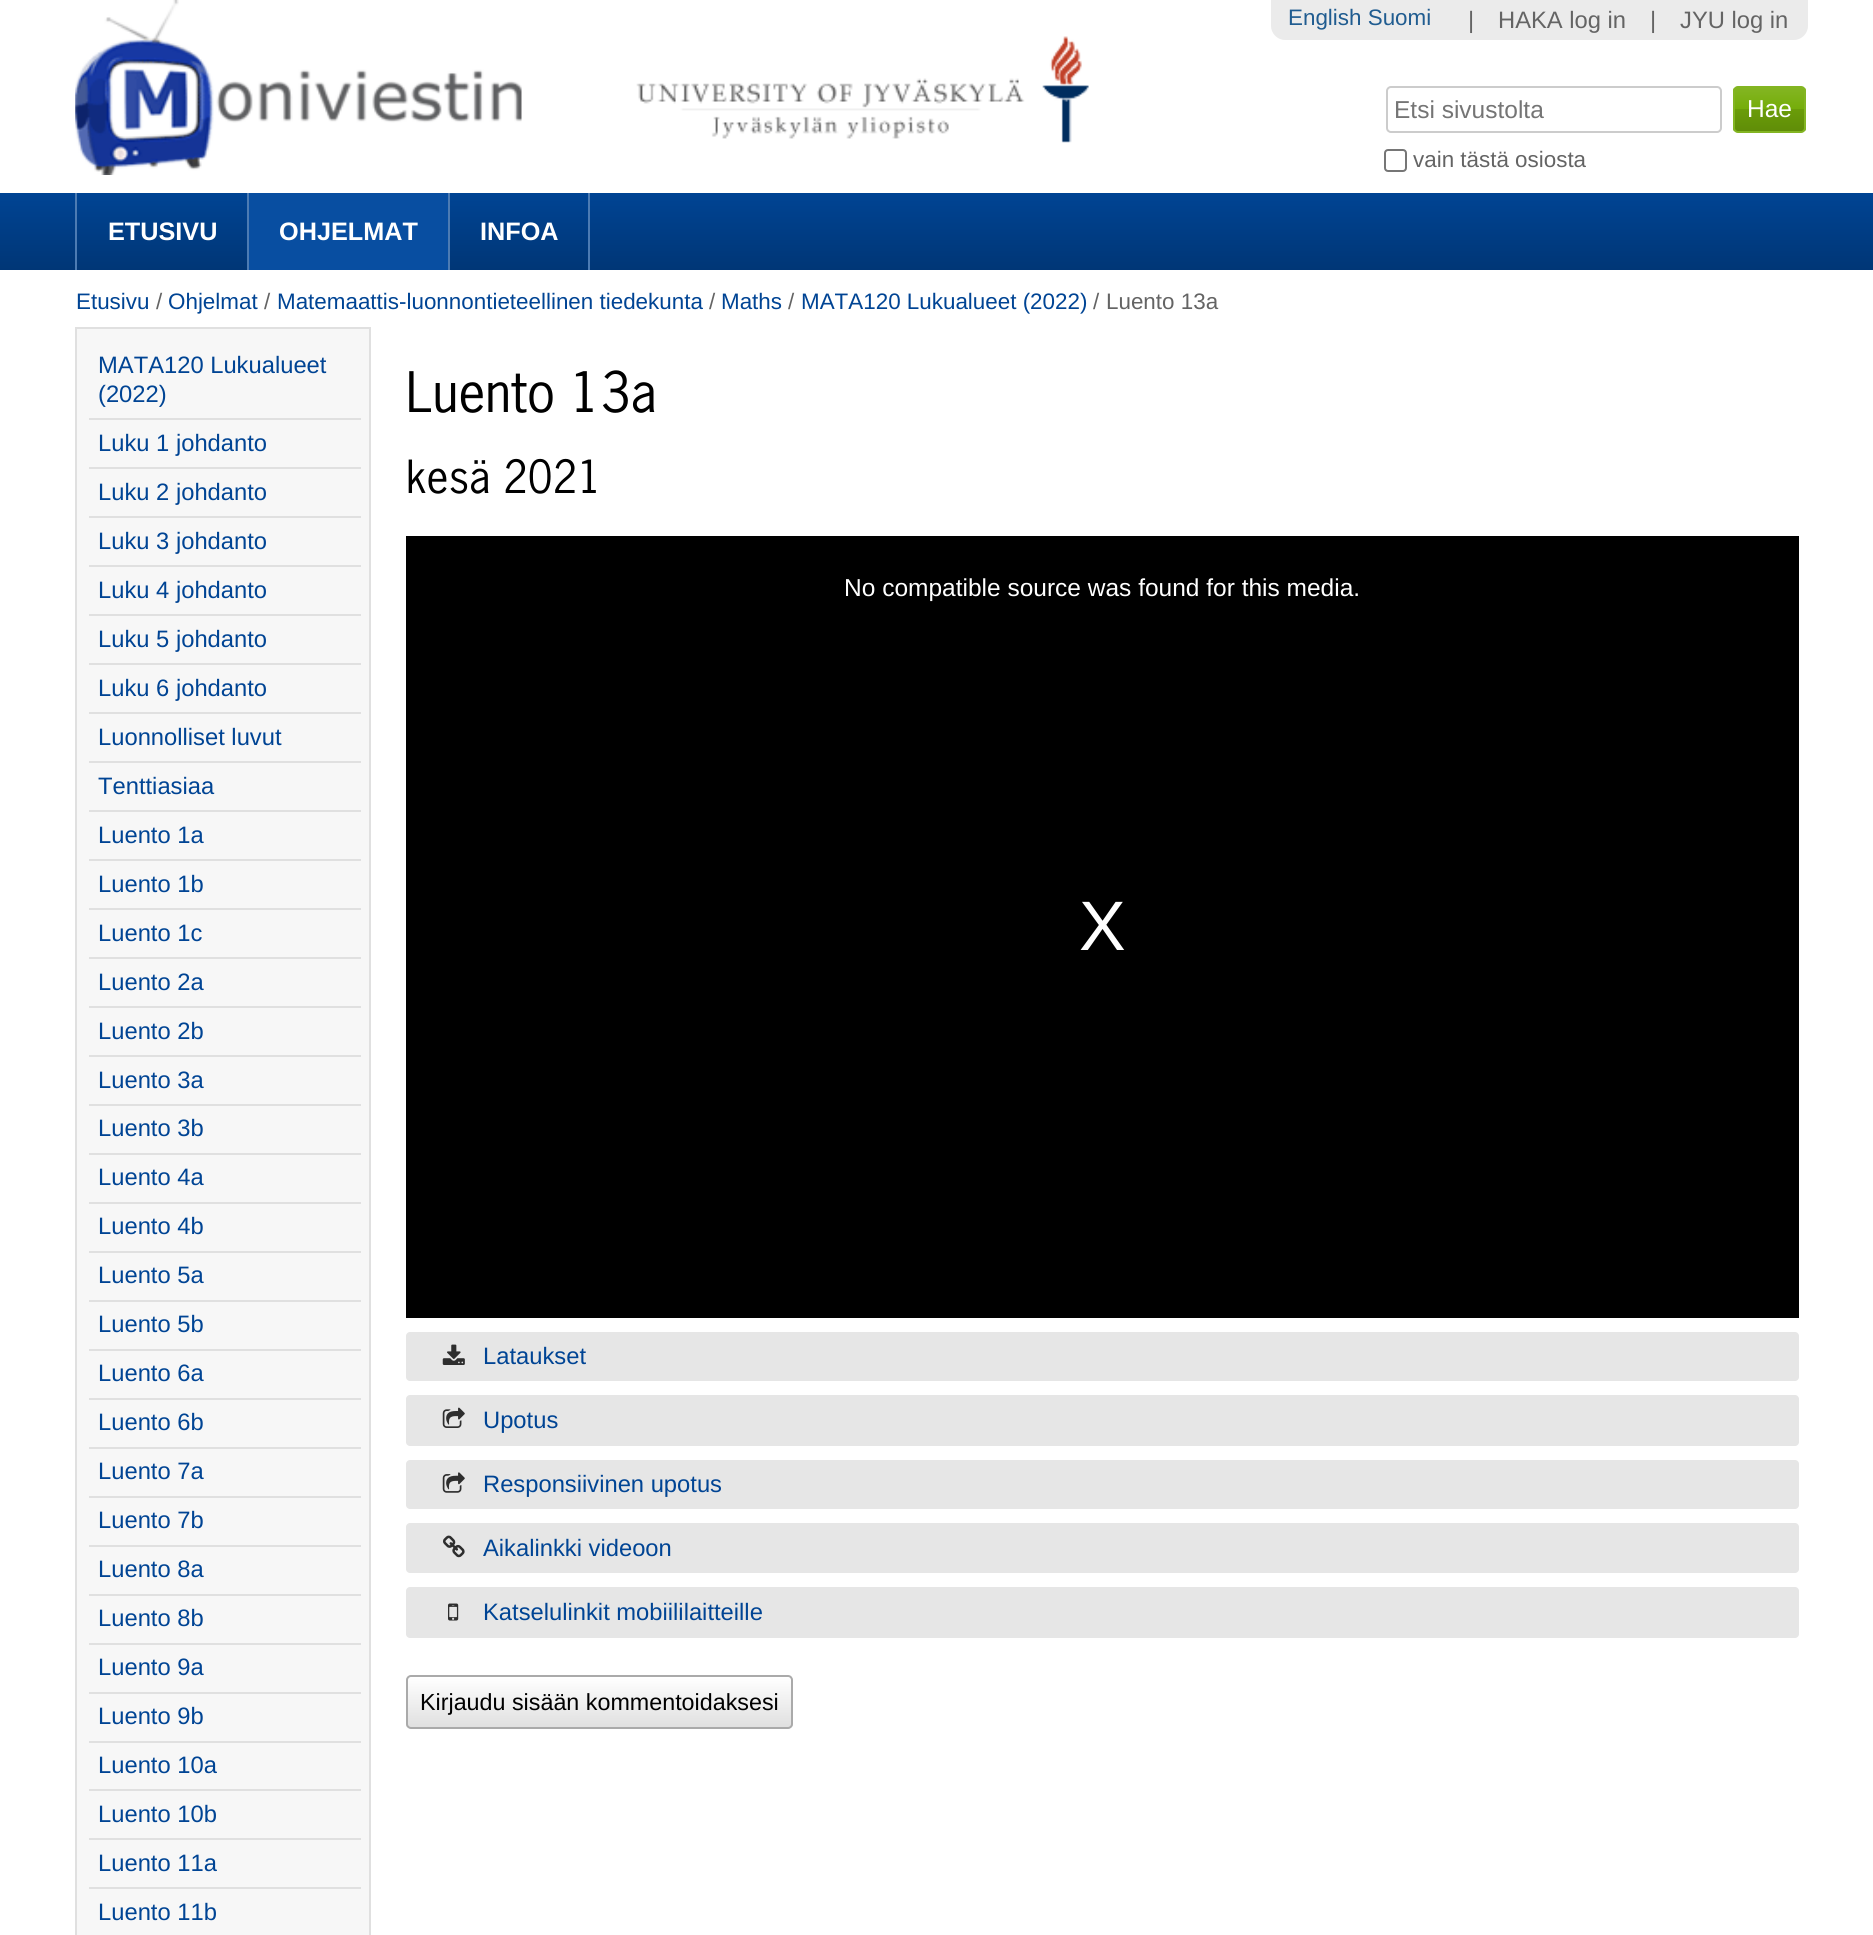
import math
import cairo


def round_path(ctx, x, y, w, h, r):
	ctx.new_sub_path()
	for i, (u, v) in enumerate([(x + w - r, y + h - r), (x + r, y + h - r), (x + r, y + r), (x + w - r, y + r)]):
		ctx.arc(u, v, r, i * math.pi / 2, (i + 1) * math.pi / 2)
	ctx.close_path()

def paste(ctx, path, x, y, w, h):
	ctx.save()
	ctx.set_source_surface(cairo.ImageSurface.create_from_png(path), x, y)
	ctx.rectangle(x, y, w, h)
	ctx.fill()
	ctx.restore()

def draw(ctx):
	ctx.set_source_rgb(1, 1, 1)
	ctx.paint()
	paste(ctx, 'media/1.png', 75, 0, 1014, 175)
	ctx.set_source_rgb(0.918, 0.918, 0.918)
	ctx.new_path()
	ctx.move_to(1271, 0)
	ctx.line_to(1808, 0)
	ctx.line_to(1808, 26)
	ctx.curve_to(1808, 33.5, 1801.5, 40, 1794, 40)
	ctx.line_to(1285, 40)
	ctx.curve_to(1277.5, 40, 1271, 33.5, 1271, 26)
	ctx.close_path()
	ctx.fill()
	ctx.select_font_face('Liberation Sans')
	ctx.set_font_size(22.4)
	ctx.set_source_rgb(0.125, 0.361, 0.565)
	ctx.move_to(1288, 25)
	ctx.show_text('English Suomi')
	ctx.set_font_size(23.75)
	ctx.set_source_rgb(0.392, 0.392, 0.392)
	for x, y, s in [
		(1468, 28, '|'),
		(1498, 28, 'HAKA log in'),
		(1650, 28, '|'),
		(1680, 28, 'JYU log in'),
	]:
		ctx.move_to(x, y)
		ctx.show_text(s)
	ctx.set_font_size(22.4)
	ctx.set_source_rgb(0, 0.267, 0.58)
	ctx.move_to(76, 309)
	ctx.show_text('Etusivu')
	ctx.set_source_rgb(0.392, 0.392, 0.392)
	ctx.move_to(156, 309)
	ctx.show_text('/')
	ctx.set_source_rgb(0, 0.267, 0.58)
	ctx.move_to(168, 309)
	ctx.show_text('Ohjelmat')
	ctx.set_source_rgb(0.392, 0.392, 0.392)
	ctx.move_to(264, 309)
	ctx.show_text('/')
	ctx.set_source_rgb(0, 0.267, 0.58)
	ctx.move_to(277, 309)
	ctx.show_text('Matemaattis-luonnontieteellinen tiedekunta')
	ctx.set_source_rgb(0.392, 0.392, 0.392)
	ctx.move_to(709, 309)
	ctx.show_text('/')
	ctx.set_source_rgb(0, 0.267, 0.58)
	ctx.move_to(721, 309)
	ctx.show_text('Maths')
	ctx.set_source_rgb(0.392, 0.392, 0.392)
	ctx.move_to(788, 309)
	ctx.show_text('/')
	ctx.set_source_rgb(0, 0.267, 0.58)
	ctx.move_to(801, 309)
	ctx.show_text('MATA120 Lukualueet (2022)')
	ctx.set_source_rgb(0.392, 0.392, 0.392)
	ctx.move_to(1093, 309)
	ctx.show_text('/')
	ctx.move_to(1106, 309)
	ctx.show_text('Luento 13a')
	ctx.set_source_rgb(0.965, 0.965, 0.965)
	ctx.rectangle(76, 328, 294, 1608)
	ctx.fill_preserve()
	ctx.set_source_rgb(0.878, 0.878, 0.878)
	ctx.stroke()
	ctx.set_font_size(23.75)
	ctx.set_source_rgb(0, 0.267, 0.58)
	ctx.move_to(98, 373)
	ctx.show_text('MATA120 Lukualueet')
	ctx.move_to(98, 402)
	ctx.show_text('(2022)')
	ctx.set_source_rgb(0.878, 0.878, 0.878)
	ctx.rectangle(89, 418, 272, 2)
	ctx.fill()
	ctx.set_source_rgb(0, 0.267, 0.58)
	ctx.move_to(98, 451)
	ctx.show_text('Luku 1 johdanto')
	ctx.set_source_rgb(0.878, 0.878, 0.878)
	ctx.rectangle(89, 467, 272, 2)
	ctx.fill()
	ctx.set_source_rgb(0, 0.267, 0.58)
	ctx.move_to(98, 500)
	ctx.show_text('Luku 2 johdanto')
	ctx.set_source_rgb(0.878, 0.878, 0.878)
	ctx.rectangle(89, 516, 272, 2)
	ctx.fill()
	ctx.set_source_rgb(0, 0.267, 0.58)
	ctx.move_to(98, 549)
	ctx.show_text('Luku 3 johdanto')
	ctx.set_source_rgb(0.878, 0.878, 0.878)
	ctx.rectangle(89, 565, 272, 2)
	ctx.fill()
	ctx.set_source_rgb(0, 0.267, 0.58)
	ctx.move_to(98, 598)
	ctx.show_text('Luku 4 johdanto')
	ctx.set_source_rgb(0.878, 0.878, 0.878)
	ctx.rectangle(89, 614, 272, 2)
	ctx.fill()
	ctx.set_source_rgb(0, 0.267, 0.58)
	ctx.move_to(98, 647)
	ctx.show_text('Luku 5 johdanto')
	ctx.set_source_rgb(0.878, 0.878, 0.878)
	ctx.rectangle(89, 663, 272, 2)
	ctx.fill()
	ctx.set_source_rgb(0, 0.267, 0.58)
	ctx.move_to(98, 696)
	ctx.show_text('Luku 6 johdanto')
	ctx.set_source_rgb(0.878, 0.878, 0.878)
	ctx.rectangle(89, 712, 272, 2)
	ctx.fill()
	ctx.set_source_rgb(0, 0.267, 0.58)
	ctx.move_to(98, 745)
	ctx.show_text('Luonnolliset luvut')
	ctx.set_source_rgb(0.878, 0.878, 0.878)
	ctx.rectangle(89, 761, 272, 2)
	ctx.fill()
	ctx.set_source_rgb(0, 0.267, 0.58)
	ctx.move_to(98, 794)
	ctx.show_text('Tenttiasiaa')
	ctx.set_source_rgb(0.878, 0.878, 0.878)
	ctx.rectangle(89, 810, 272, 2)
	ctx.fill()
	ctx.set_source_rgb(0, 0.267, 0.58)
	ctx.move_to(98, 843)
	ctx.show_text('Luento 1a')
	ctx.set_source_rgb(0.878, 0.878, 0.878)
	ctx.rectangle(89, 859, 272, 2)
	ctx.fill()
	ctx.set_source_rgb(0, 0.267, 0.58)
	ctx.move_to(98, 892)
	ctx.show_text('Luento 1b')
	ctx.set_source_rgb(0.878, 0.878, 0.878)
	ctx.rectangle(89, 908, 272, 2)
	ctx.fill()
	ctx.set_source_rgb(0, 0.267, 0.58)
	ctx.move_to(98, 941)
	ctx.show_text('Luento 1c')
	ctx.set_source_rgb(0.878, 0.878, 0.878)
	ctx.rectangle(89, 957, 272, 2)
	ctx.fill()
	ctx.set_source_rgb(0, 0.267, 0.58)
	ctx.move_to(98, 990)
	ctx.show_text('Luento 2a')
	ctx.set_source_rgb(0.878, 0.878, 0.878)
	ctx.rectangle(89, 1006, 272, 2)
	ctx.fill()
	ctx.set_source_rgb(0, 0.267, 0.58)
	ctx.move_to(98, 1039)
	ctx.show_text('Luento 2b')
	ctx.set_source_rgb(0.878, 0.878, 0.878)
	ctx.rectangle(89, 1055, 272, 2)
	ctx.fill()
	ctx.set_source_rgb(0, 0.267, 0.58)
	ctx.move_to(98, 1088)
	ctx.show_text('Luento 3a')
	ctx.set_source_rgb(0.878, 0.878, 0.878)
	ctx.rectangle(89, 1104, 272, 2)
	ctx.fill()
	ctx.set_source_rgb(0, 0.267, 0.58)
	ctx.move_to(98, 1136)
	ctx.show_text('Luento 3b')
	ctx.set_source_rgb(0.878, 0.878, 0.878)
	ctx.rectangle(89, 1153, 272, 2)
	ctx.fill()
	ctx.set_source_rgb(0, 0.267, 0.58)
	ctx.move_to(98, 1185)
	ctx.show_text('Luento 4a')
	ctx.set_source_rgb(0.878, 0.878, 0.878)
	ctx.rectangle(89, 1202, 272, 2)
	ctx.fill()
	ctx.set_source_rgb(0, 0.267, 0.58)
	ctx.move_to(98, 1234)
	ctx.show_text('Luento 4b')
	ctx.set_source_rgb(0.878, 0.878, 0.878)
	ctx.rectangle(89, 1251, 272, 2)
	ctx.fill()
	ctx.set_source_rgb(0, 0.267, 0.58)
	ctx.move_to(98, 1283)
	ctx.show_text('Luento 5a')
	ctx.set_source_rgb(0.878, 0.878, 0.878)
	ctx.rectangle(89, 1300, 272, 2)
	ctx.fill()
	ctx.set_source_rgb(0, 0.267, 0.58)
	ctx.move_to(98, 1332)
	ctx.show_text('Luento 5b')
	ctx.set_source_rgb(0.878, 0.878, 0.878)
	ctx.rectangle(89, 1349, 272, 2)
	ctx.fill()
	ctx.set_source_rgb(0, 0.267, 0.58)
	ctx.move_to(98, 1381)
	ctx.show_text('Luento 6a')
	ctx.set_source_rgb(0.878, 0.878, 0.878)
	ctx.rectangle(89, 1398, 272, 2)
	ctx.fill()
	ctx.set_source_rgb(0, 0.267, 0.58)
	ctx.move_to(98, 1430)
	ctx.show_text('Luento 6b')
	ctx.set_source_rgb(0.878, 0.878, 0.878)
	ctx.rectangle(89, 1447, 272, 2)
	ctx.fill()
	ctx.set_source_rgb(0, 0.267, 0.58)
	ctx.move_to(98, 1479)
	ctx.show_text('Luento 7a')
	ctx.set_source_rgb(0.878, 0.878, 0.878)
	ctx.rectangle(89, 1496, 272, 2)
	ctx.fill()
	ctx.set_source_rgb(0, 0.267, 0.58)
	ctx.move_to(98, 1528)
	ctx.show_text('Luento 7b')
	ctx.set_source_rgb(0.878, 0.878, 0.878)
	ctx.rectangle(89, 1545, 272, 2)
	ctx.fill()
	ctx.set_source_rgb(0, 0.267, 0.58)
	ctx.move_to(98, 1577)
	ctx.show_text('Luento 8a')
	ctx.set_source_rgb(0.878, 0.878, 0.878)
	ctx.rectangle(89, 1594, 272, 2)
	ctx.fill()
	ctx.set_source_rgb(0, 0.267, 0.58)
	ctx.move_to(98, 1626)
	ctx.show_text('Luento 8b')
	ctx.set_source_rgb(0.878, 0.878, 0.878)
	ctx.rectangle(89, 1643, 272, 2)
	ctx.fill()
	ctx.set_source_rgb(0, 0.267, 0.58)
	ctx.move_to(98, 1675)
	ctx.show_text('Luento 9a')
	ctx.set_source_rgb(0.878, 0.878, 0.878)
	ctx.rectangle(89, 1692, 272, 2)
	ctx.fill()
	ctx.set_source_rgb(0, 0.267, 0.58)
	ctx.move_to(98, 1724)
	ctx.show_text('Luento 9b')
	ctx.set_source_rgb(0.878, 0.878, 0.878)
	ctx.rectangle(89, 1741, 272, 2)
	ctx.fill()
	ctx.set_source_rgb(0, 0.267, 0.58)
	ctx.move_to(98, 1773)
	ctx.show_text('Luento 10a')
	ctx.set_source_rgb(0.878, 0.878, 0.878)
	ctx.rectangle(89, 1789, 272, 2)
	ctx.fill()
	ctx.set_source_rgb(0, 0.267, 0.58)
	ctx.move_to(98, 1822)
	ctx.show_text('Luento 10b')
	ctx.set_source_rgb(0.878, 0.878, 0.878)
	ctx.rectangle(89, 1838, 272, 2)
	ctx.fill()
	ctx.set_source_rgb(0, 0.267, 0.58)
	ctx.move_to(98, 1871)
	ctx.show_text('Luento 11a')
	ctx.set_source_rgb(0.878, 0.878, 0.878)
	ctx.rectangle(89, 1887, 272, 2)
	ctx.fill()
	ctx.set_source_rgb(0, 0.267, 0.58)
	ctx.move_to(98, 1920)
	ctx.show_text('Luento 11b')
	ctx.select_font_face('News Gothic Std')
	ctx.set_font_size(52.5)
	ctx.set_source_rgb(0, 0, 0)
	ctx.move_to(406, 412)
	ctx.show_text('Luento 13a')
	ctx.set_font_size(43)
	ctx.move_to(406, 493)
	ctx.show_text('kesä 2021')
	ctx.rectangle(406, 536, 1393, 782)
	ctx.fill()
	ctx.select_font_face('Liberation Sans')
	ctx.set_font_size(24.5)
	ctx.set_source_rgb(1, 1, 1)
	ctx.move_to(844, 596)
	ctx.show_text('No compatible source was found for this media.')
	ctx.set_font_size(70)
	ctx.move_to(1079, 950)
	ctx.show_text('X')
	ctx.set_source_rgb(0.902, 0.902, 0.902)
	round_path(ctx, 406, 1332, 1393, 49, 4)
	ctx.fill()
	paste(ctx, 'media/2.png', 442, 1344, 23, 21)
	ctx.set_font_size(23.75)
	ctx.set_source_rgb(0, 0.267, 0.58)
	ctx.move_to(483, 1364)
	ctx.show_text('Lataukset')
	ctx.set_source_rgb(0.902, 0.902, 0.902)
	round_path(ctx, 406, 1395, 1393, 51, 4)
	ctx.fill()
	paste(ctx, 'media/3.png', 442, 1407, 23, 21)
	ctx.set_source_rgb(0, 0.267, 0.58)
	ctx.move_to(483, 1428)
	ctx.show_text('Upotus')
	ctx.set_source_rgb(0.902, 0.902, 0.902)
	round_path(ctx, 406, 1460, 1393, 49, 4)
	ctx.fill()
	paste(ctx, 'media/4.png', 442, 1472, 23, 21)
	ctx.set_source_rgb(0, 0.267, 0.58)
	ctx.move_to(483, 1492)
	ctx.show_text('Responsiivinen upotus')
	ctx.set_source_rgb(0.902, 0.902, 0.902)
	round_path(ctx, 406, 1523, 1393, 50, 4)
	ctx.fill()
	paste(ctx, 'media/5.png', 443, 1535, 22, 23)
	ctx.set_source_rgb(0, 0.267, 0.58)
	ctx.move_to(483, 1556)
	ctx.show_text('Aikalinkki videoon')
	ctx.set_source_rgb(0.902, 0.902, 0.902)
	round_path(ctx, 406, 1587, 1393, 51, 4)
	ctx.fill()
	paste(ctx, 'media/6.png', 448, 1603, 11, 18)
	ctx.set_source_rgb(0, 0.267, 0.58)
	ctx.move_to(483, 1620)
	ctx.show_text('Katselulinkit mobiililaitteille')
	ctx.save()
	round_path(ctx, 406, 1675, 387, 54, 5)
	ctx.clip()
	gradient = cairo.LinearGradient(599, 1677, 599, 1727)
	gradient.add_color_stop_rgba(0, 1, 1, 1, 1)
	gradient.add_color_stop_rgba(1, 0.878, 0.878, 0.878, 1)
	ctx.set_source(gradient)
	ctx.rectangle(406, 1677, 387, 50)
	ctx.fill()
	ctx.restore()
	round_path(ctx, 407, 1676, 385, 52, 4)
	ctx.set_source_rgb(0.667, 0.667, 0.667)
	ctx.stroke()
	ctx.set_font_size(23.3)
	ctx.set_source_rgb(0, 0, 0)
	ctx.move_to(420, 1710)
	ctx.show_text('Kirjaudu sisään kommentoidaksesi')
	round_path(ctx, 1387, 87, 334, 45, 4)
	ctx.set_source_rgb(0.8, 0.8, 0.8)
	ctx.stroke()
	ctx.set_font_size(24.5)
	ctx.set_source_rgb(0.459, 0.459, 0.459)
	ctx.move_to(1394, 118)
	ctx.show_text('Etsi sivustolta')
	ctx.save()
	round_path(ctx, 1733, 86, 73, 47, 5)
	ctx.clip()
	gradient = cairo.LinearGradient(1769, 88, 1769, 131)
	gradient.add_color_stop_rgba(0, 0.514, 0.71, 0.133, 1)
	gradient.add_color_stop_rgba(0.49, 0.459, 0.678, 0.039, 1)
	gradient.add_color_stop_rgba(0.5, 0.416, 0.612, 0.035, 1)
	gradient.add_color_stop_rgba(1, 0.376, 0.553, 0.031, 1)
	ctx.set_source(gradient)
	ctx.rectangle(1733, 88, 73, 43)
	ctx.fill()
	ctx.restore()
	round_path(ctx, 1734, 87, 71, 45, 4)
	ctx.set_source_rgb(0.514, 0.71, 0.133)
	ctx.stroke()
	ctx.set_source_rgb(1, 1, 1)
	ctx.move_to(1747, 117)
	ctx.show_text('Hae')
	round_path(ctx, 1385, 150, 21, 21, 3)
	ctx.set_source_rgb(0.463, 0.463, 0.463)
	ctx.stroke()
	ctx.set_font_size(22.4)
	ctx.set_source_rgb(0.392, 0.392, 0.392)
	ctx.move_to(1413, 167)
	ctx.show_text('vain tästä osiosta')
	gradient = cairo.LinearGradient(937, 192, 937, 270)
	gradient.add_color_stop_rgba(0, 0, 0.267, 0.58, 1)
	gradient.add_color_stop_rgba(1, 0, 0.212, 0.463, 1)
	ctx.set_source(gradient)
	ctx.rectangle(0, 193, 1873, 77)
	ctx.fill()
	ctx.set_source_rgb(0.298, 0.482, 0.702)
	ctx.rectangle(247, 193, 2, 77)
	ctx.fill()
	ctx.rectangle(75, 193, 2, 77)
	ctx.fill()
	ctx.select_font_face('Liberation Sans', cairo.FONT_SLANT_NORMAL, cairo.FONT_WEIGHT_BOLD)
	ctx.set_font_size(25.25)
	ctx.set_source_rgb(1, 1, 1)
	ctx.move_to(108, 240)
	ctx.show_text('ETUSIVU')
	ctx.set_source_rgb(0.035, 0.306, 0.631)
	ctx.rectangle(249, 193, 199, 77)
	ctx.fill()
	ctx.set_source_rgb(0.298, 0.482, 0.702)
	ctx.rectangle(448, 193, 2, 77)
	ctx.fill()
	ctx.set_source_rgb(1, 1, 1)
	ctx.move_to(279, 240)
	ctx.show_text('OHJELMAT')
	ctx.set_source_rgb(0.298, 0.482, 0.702)
	ctx.rectangle(588, 193, 2, 77)
	ctx.fill()
	ctx.set_source_rgb(1, 1, 1)
	ctx.move_to(480, 240)
	ctx.show_text('INFOA')


surface = cairo.ImageSurface(cairo.FORMAT_RGB24, 1873, 1935)
ctx = cairo.Context(surface)
options = cairo.FontOptions()
options.set_hint_metrics(cairo.HINT_METRICS_OFF)
options.set_hint_style(cairo.HINT_STYLE_NONE)
ctx.set_font_options(options)
ctx.set_miter_limit(4)
draw(ctx)
surface.write_to_png('image.png')
